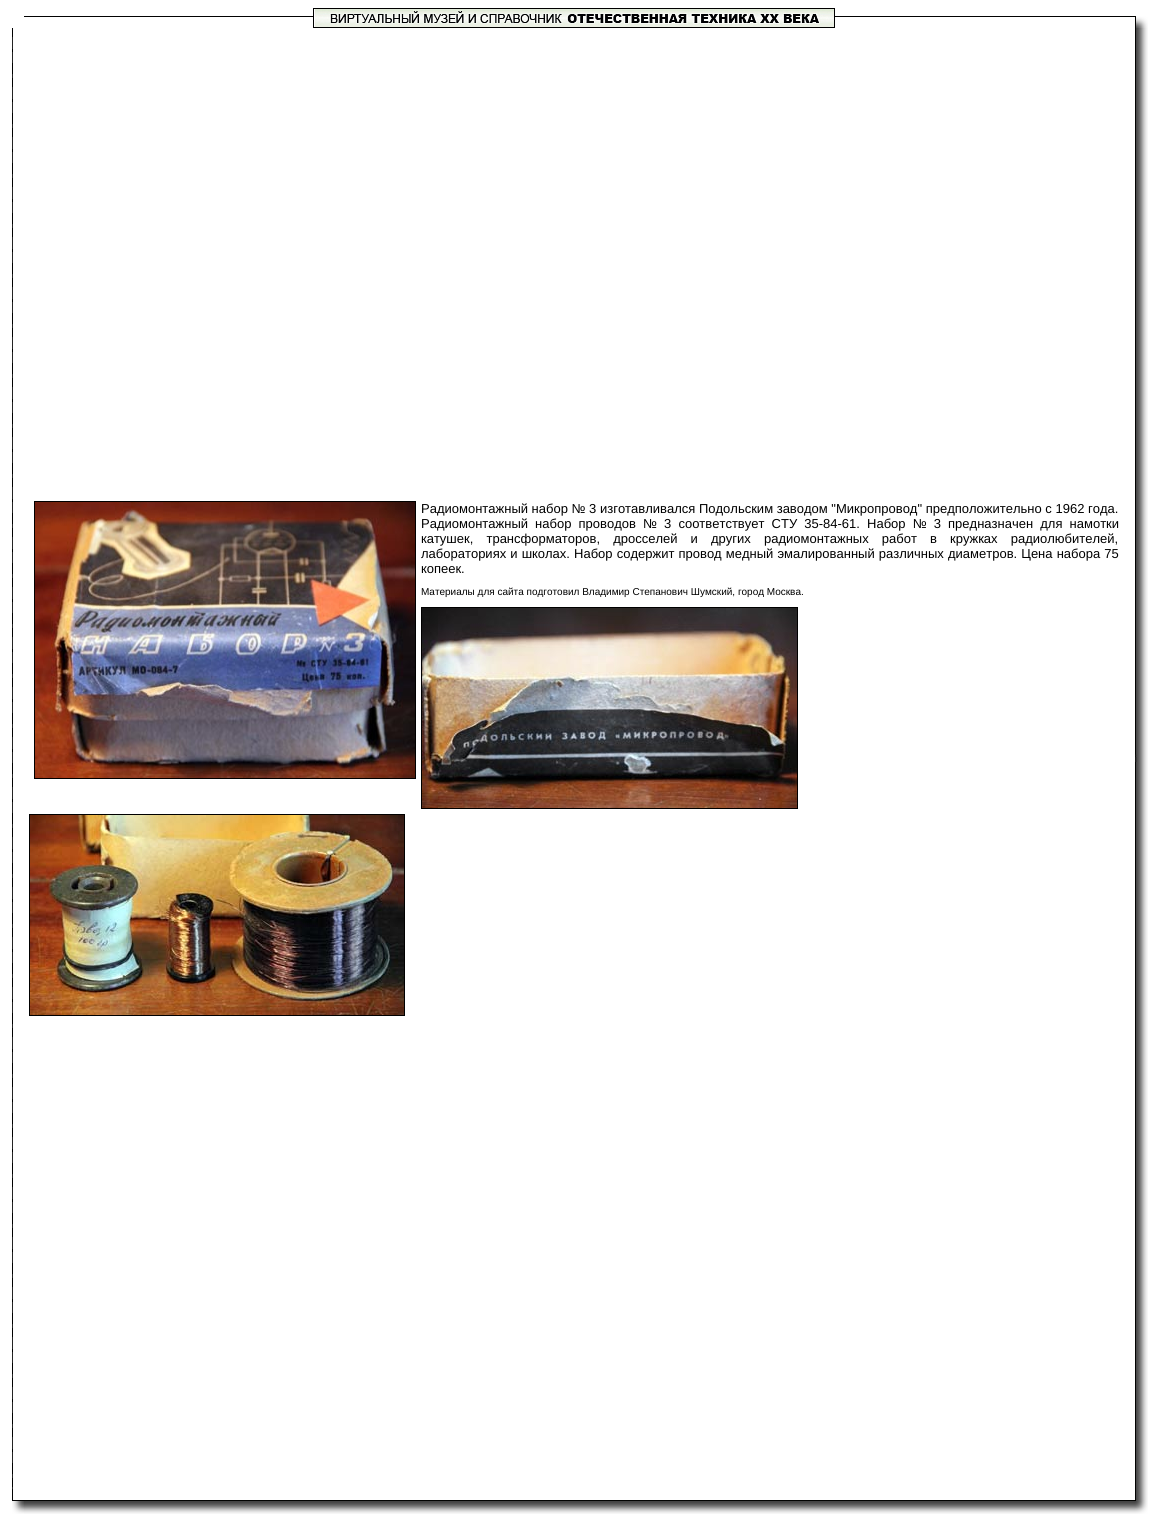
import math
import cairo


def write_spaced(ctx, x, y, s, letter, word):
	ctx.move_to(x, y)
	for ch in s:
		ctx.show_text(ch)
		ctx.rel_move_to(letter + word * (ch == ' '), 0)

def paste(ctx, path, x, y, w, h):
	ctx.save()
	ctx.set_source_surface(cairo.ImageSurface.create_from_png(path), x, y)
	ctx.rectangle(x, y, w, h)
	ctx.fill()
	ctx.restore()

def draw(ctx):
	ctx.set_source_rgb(1, 1, 1)
	ctx.paint()
	ctx.set_source_rgb(0.008, 0.008, 0.008)
	ctx.rectangle(24, 16, 1100, 1)
	ctx.fill()
	ctx.rectangle(313.5, 8.5, 521, 19)
	ctx.set_source_rgb(0, 0, 0)
	ctx.set_line_width(1)
	ctx.stroke()
	paste(ctx, 'media/1.png', 314, 9, 520, 18)
	paste(ctx, 'media/2.png', 1124, 16, 24, 12)
	paste(ctx, 'media/3.png', 12, 28, 1, 1461)
	ctx.rectangle(34.5, 501.5, 381, 277)
	ctx.stroke()
	paste(ctx, 'media/4.png', 35, 502, 380, 276)
	ctx.select_font_face('Liberation Sans')
	ctx.set_font_size(13)
	ctx.move_to(421, 513)
	ctx.show_text('Радиомонтажный набор № 3 изготавливался Подольским заводом "Микропровод" предположительно с 1962 года.')
	write_spaced(ctx, 421, 528, 'Радиомонтажный набор проводов № 3 соответствует СТУ 35-84-61. Набор № 3 предназначен для намотки', 0, 3.5)
	write_spaced(ctx, 421, 543, 'катушек, трансформаторов, дросселей и других радиомонтажных работ в кружках радиолюбителей,', 0, 9.5)
	write_spaced(ctx, 421, 558, 'лабораториях и школах. Набор содержит провод медный эмалированный различных диаметров. Цена набора 75', 0, 0.5)
	ctx.move_to(421, 573)
	ctx.show_text('копеек.')
	ctx.set_font_size(10)
	ctx.move_to(421, 595)
	ctx.show_text('Материалы для сайта подготовил Владимир Степанович Шумский, город Москва.')
	ctx.rectangle(421.5, 607.5, 376, 201)
	ctx.stroke()
	paste(ctx, 'media/5.png', 422, 608, 375, 200)
	ctx.rectangle(29.5, 814.5, 375, 201)
	ctx.stroke()
	paste(ctx, 'media/6.png', 30, 815, 374, 200)
	paste(ctx, 'media/7.png', 1135, 28, 13, 1461)
	ctx.set_source_rgb(0.2, 0.2, 0.2)
	ctx.move_to(1135, 762)
	ctx.show_text('i')
	paste(ctx, 'media/8.png', 12, 1489, 12, 25)
	paste(ctx, 'media/9.png', 24, 1500, 1100, 14)
	paste(ctx, 'media/10.png', 1124, 1489, 24, 25)


surface = cairo.ImageSurface(cairo.FORMAT_RGB24, 1157, 1523)
ctx = cairo.Context(surface)
options = cairo.FontOptions()
options.set_hint_metrics(cairo.HINT_METRICS_OFF)
options.set_hint_style(cairo.HINT_STYLE_NONE)
ctx.set_font_options(options)
ctx.set_miter_limit(4)
draw(ctx)
surface.write_to_png('image.png')
